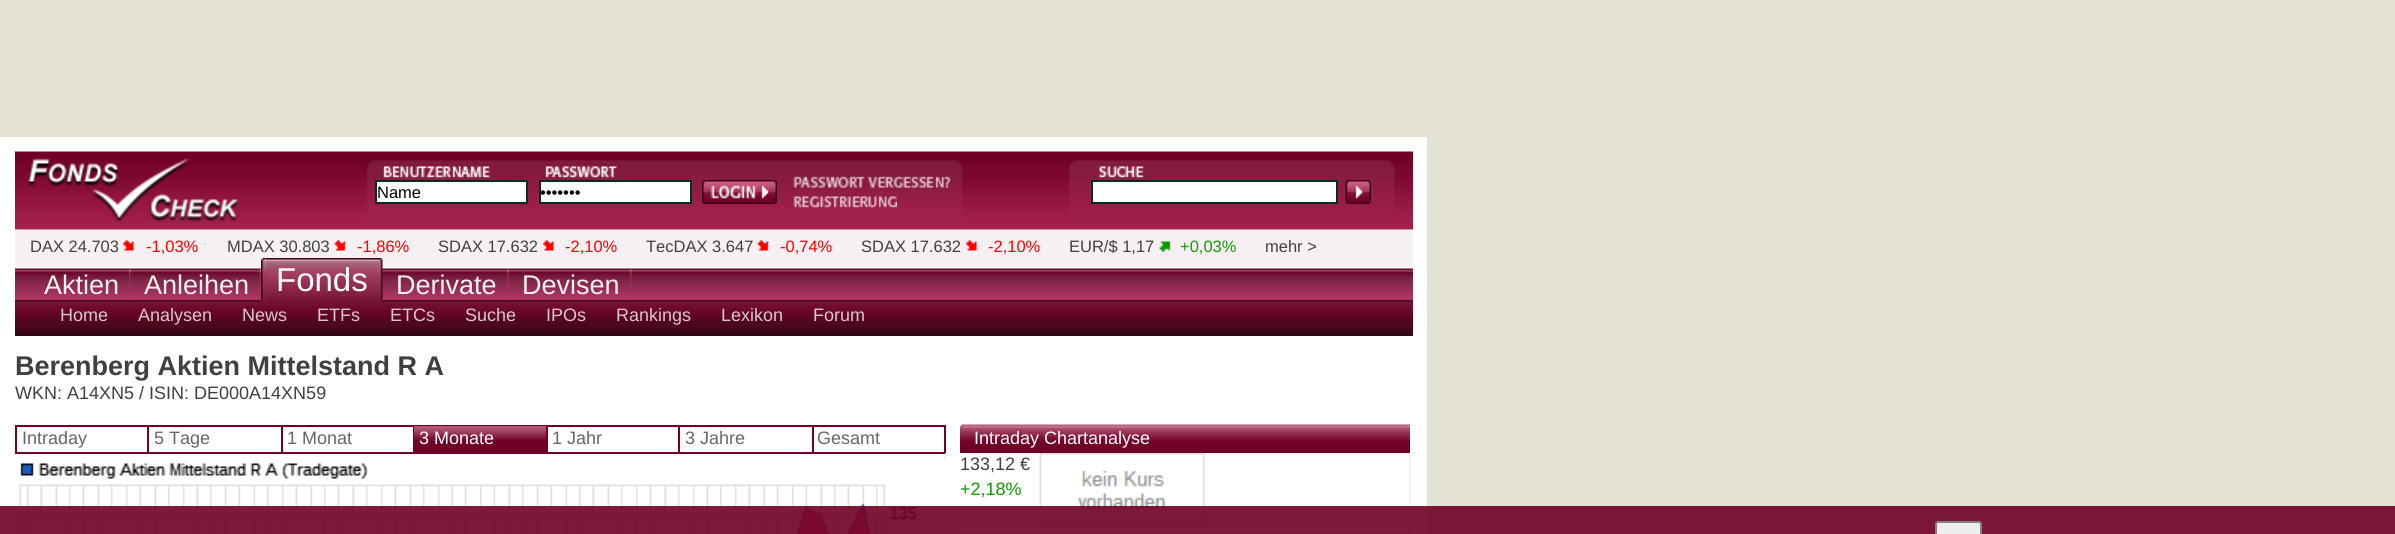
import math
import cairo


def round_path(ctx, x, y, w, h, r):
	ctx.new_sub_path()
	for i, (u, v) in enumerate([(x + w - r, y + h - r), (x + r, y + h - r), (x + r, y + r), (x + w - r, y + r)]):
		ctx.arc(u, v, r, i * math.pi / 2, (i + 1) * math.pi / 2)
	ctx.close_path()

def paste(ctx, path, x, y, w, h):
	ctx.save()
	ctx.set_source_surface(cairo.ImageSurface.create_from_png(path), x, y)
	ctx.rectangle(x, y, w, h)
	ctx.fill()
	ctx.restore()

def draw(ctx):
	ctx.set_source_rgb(0.894, 0.886, 0.831)
	ctx.paint()
	ctx.set_source_rgb(1, 1, 1)
	ctx.rectangle(0, 137, 1427, 397)
	ctx.fill()
	paste(ctx, 'media/1.png', 15, 151, 1398, 79)
	paste(ctx, 'media/2.png', 364, 160, 601, 61)
	ctx.rectangle(376, 181, 151, 22)
	ctx.fill_preserve()
	ctx.set_source_rgb(0, 0.196, 0.106)
	ctx.stroke()
	ctx.select_font_face('Liberation Sans')
	ctx.set_font_size(16.5)
	ctx.set_source_rgb(0, 0, 0)
	ctx.move_to(377, 198)
	ctx.show_text('Name')
	ctx.set_source_rgb(1, 1, 1)
	ctx.rectangle(540, 181, 151, 22)
	ctx.fill_preserve()
	ctx.set_source_rgb(0, 0.196, 0.106)
	ctx.stroke()
	ctx.set_source_rgb(0, 0, 0)
	ctx.move_to(540, 198)
	ctx.show_text('•••••••')
	paste(ctx, 'media/3.png', 702, 180, 75, 24)
	paste(ctx, 'media/4.png', 793, 176, 158, 12)
	paste(ctx, 'media/5.png', 792, 196, 105, 12)
	paste(ctx, 'media/6.png', 1067, 160, 330, 61)
	ctx.set_source_rgb(1, 1, 1)
	ctx.rectangle(1092, 181, 245, 22)
	ctx.fill_preserve()
	ctx.set_source_rgb(0, 0.196, 0.106)
	ctx.stroke()
	paste(ctx, 'media/7.png', 1345, 180, 26, 24)
	ctx.set_source_rgb(0.961, 0.941, 0.949)
	ctx.rectangle(15, 231, 1398, 36)
	ctx.fill()
	ctx.set_source_rgb(0.251, 0.251, 0.251)
	ctx.move_to(30, 252)
	ctx.show_text('DAX 24.703')
	paste(ctx, 'media/8.png', 123, 239, 11, 12)
	ctx.set_source_rgb(0.992, 0.004, 0)
	ctx.move_to(146, 252)
	ctx.show_text('-1,03%')
	ctx.set_source_rgb(0.251, 0.251, 0.251)
	ctx.move_to(227, 252)
	ctx.show_text('MDAX 30.803')
	paste(ctx, 'media/9.png', 334, 239, 12, 12)
	ctx.set_source_rgb(0.992, 0.004, 0)
	ctx.move_to(357, 252)
	ctx.show_text('-1,86%')
	ctx.set_source_rgb(0.251, 0.251, 0.251)
	ctx.move_to(438, 252)
	ctx.show_text('SDAX 17.632')
	paste(ctx, 'media/8.png', 543, 239, 11, 12)
	ctx.set_source_rgb(0.992, 0.004, 0)
	ctx.move_to(565, 252)
	ctx.show_text('-2,10%')
	ctx.set_source_rgb(0.251, 0.251, 0.251)
	ctx.move_to(646, 252)
	ctx.show_text('TecDAX 3.647')
	paste(ctx, 'media/10.png', 757, 239, 12, 12)
	ctx.set_source_rgb(0.992, 0.004, 0)
	ctx.move_to(780, 252)
	ctx.show_text('-0,74%')
	ctx.set_source_rgb(0.251, 0.251, 0.251)
	ctx.move_to(861, 252)
	ctx.show_text('SDAX 17.632')
	paste(ctx, 'media/8.png', 966, 239, 11, 12)
	ctx.set_source_rgb(0.992, 0.004, 0)
	ctx.move_to(988, 252)
	ctx.show_text('-2,10%')
	ctx.set_source_rgb(0.251, 0.251, 0.251)
	ctx.move_to(1069, 252)
	ctx.show_text('EUR/$ 1,17')
	paste(ctx, 'media/11.png', 1159, 241, 12, 11)
	ctx.set_source_rgb(0.055, 0.608, 0)
	ctx.move_to(1180, 252)
	ctx.show_text('+0,03%')
	ctx.set_source_rgb(0.251, 0.251, 0.251)
	ctx.move_to(1265, 252)
	ctx.show_text('mehr >')
	paste(ctx, 'media/12.png', 15, 268, 1398, 68)
	paste(ctx, 'media/13.png', 382, 268, 1, 32)
	paste(ctx, 'media/14.png', 261, 258, 5, 44)
	paste(ctx, 'media/15.png', 265, 258, 118, 44)
	ctx.set_font_size(33)
	ctx.set_source_rgb(0.996, 0.996, 0.996)
	ctx.move_to(276, 291)
	ctx.show_text('Fonds')
	ctx.set_font_size(18)
	ctx.set_source_rgb(0.851, 0.78, 0.804)
	for x, y, s in [
		(60, 321, 'Home'),
		(138, 321, 'Analysen'),
		(242, 321, 'News'),
		(317, 321, 'ETFs'),
		(390, 321, 'ETCs'),
		(465, 321, 'Suche'),
		(546, 321, 'IPOs'),
		(616, 321, 'Rankings'),
		(721, 321, 'Lexikon'),
		(813, 321, 'Forum'),
	]:
		ctx.move_to(x, y)
		ctx.show_text(s)
	paste(ctx, 'media/16.png', 129, 268, 2, 32)
	ctx.set_font_size(27)
	ctx.set_source_rgb(0.98, 0.941, 0.953)
	ctx.move_to(44, 294)
	ctx.show_text('Aktien')
	paste(ctx, 'media/17.png', 259, 268, 2, 32)
	ctx.move_to(144, 294)
	ctx.show_text('Anleihen')
	paste(ctx, 'media/16.png', 507, 268, 2, 32)
	ctx.move_to(396, 294)
	ctx.show_text('Derivate')
	paste(ctx, 'media/16.png', 630, 268, 2, 32)
	ctx.move_to(522, 294)
	ctx.show_text('Devisen')
	ctx.select_font_face('Liberation Sans', cairo.FONT_SLANT_NORMAL, cairo.FONT_WEIGHT_BOLD)
	ctx.set_source_rgb(0.251, 0.251, 0.251)
	ctx.move_to(15, 375)
	ctx.show_text('Berenberg Aktien Mittelstand R A')
	ctx.select_font_face('Liberation Sans')
	ctx.set_font_size(18)
	ctx.move_to(15, 399)
	ctx.show_text('WKN: A14XN5 / ISIN: DE000A14XN59')
	ctx.set_source_rgb(0.439, 0, 0.145)
	ctx.rectangle(812, 425, 133, 2)
	ctx.fill()
	ctx.set_source_rgb(0.949, 0.949, 0.949)
	ctx.rectangle(944, 452, 2, 9)
	ctx.fill()
	ctx.set_source_rgb(0.439, 0, 0.145)
	ctx.rectangle(944, 425, 2, 28)
	ctx.rectangle(812, 452, 133, 2)
	ctx.rectangle(812, 425, 2, 28)
	ctx.rectangle(678, 425, 135, 2)
	ctx.rectangle(678, 452, 135, 2)
	ctx.rectangle(678, 425, 2, 28)
	ctx.rectangle(546, 425, 134, 2)
	ctx.rectangle(546, 452, 134, 2)
	ctx.rectangle(546, 425, 2, 28)
	ctx.rectangle(413, 425, 135, 2)
	ctx.rectangle(413, 452, 135, 2)
	ctx.rectangle(413, 425, 2, 28)
	ctx.rectangle(281, 425, 133, 2)
	ctx.rectangle(281, 452, 133, 2)
	ctx.rectangle(281, 425, 2, 28)
	ctx.rectangle(147, 425, 135, 2)
	ctx.rectangle(147, 452, 135, 2)
	ctx.rectangle(147, 425, 2, 28)
	ctx.rectangle(15, 425, 134, 2)
	ctx.rectangle(15, 452, 134, 2)
	ctx.rectangle(15, 425, 2, 28)
	ctx.fill()
	ctx.set_source_rgb(0.4, 0.4, 0.4)
	for x, y, s in [
		(22, 444, 'Intraday'),
		(154, 444, '5 Tage'),
		(287, 444, '1 Monat'),
	]:
		ctx.move_to(x, y)
		ctx.show_text(s)
	ctx.set_source_rgb(0.439, 0, 0.145)
	ctx.rectangle(415, 441, 131, 11)
	ctx.fill()
	paste(ctx, 'media/18.png', 414, 426, 132, 15)
	ctx.set_source_rgb(0.996, 0.996, 0.996)
	ctx.move_to(419, 444)
	ctx.show_text('3 Monate')
	ctx.set_source_rgb(0.4, 0.4, 0.4)
	for x, y, s in [
		(552, 444, '1 Jahr'),
		(685, 444, '3 Jahre'),
		(817, 444, 'Gesamt'),
	]:
		ctx.move_to(x, y)
		ctx.show_text(s)
	paste(ctx, 'media/19.png', 19, 460, 927, 74)
	paste(ctx, 'media/20.png', 21, 486, 896, 48)
	paste(ctx, 'media/21.png', 960, 532, 450, 2)
	paste(ctx, 'media/22.png', 960, 424, 450, 29)
	ctx.set_source_rgb(0.996, 0.996, 0.996)
	ctx.move_to(974, 444)
	ctx.show_text('Intraday Chartanalyse')
	ctx.set_source_rgb(0.922, 0.961, 0.929)
	ctx.rectangle(1409, 453, 2, 80)
	ctx.fill()
	ctx.set_source_rgb(0.251, 0.251, 0.251)
	ctx.move_to(960, 470)
	ctx.show_text('133,12 €')
	ctx.set_source_rgb(0.055, 0.608, 0)
	ctx.move_to(960, 495)
	ctx.show_text('+2,18%')
	paste(ctx, 'media/23.png', 1039, 453, 219, 80)
	ctx.set_source_rgba(0.439, 0, 0.145, 0.9)
	ctx.rectangle(0, 506, 2395, 28)
	ctx.fill()
	ctx.set_source_rgb(0.933, 0.933, 0.925)
	round_path(ctx, 1936, 522, 45, 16, 2)
	ctx.fill_preserve()
	ctx.set_source_rgb(0.506, 0.506, 0.498)
	ctx.stroke()


surface = cairo.ImageSurface(cairo.FORMAT_RGB24, 2395, 534)
ctx = cairo.Context(surface)
options = cairo.FontOptions()
options.set_hint_metrics(cairo.HINT_METRICS_OFF)
options.set_hint_style(cairo.HINT_STYLE_NONE)
ctx.set_font_options(options)
ctx.set_miter_limit(4)
draw(ctx)
surface.write_to_png('image.png')
